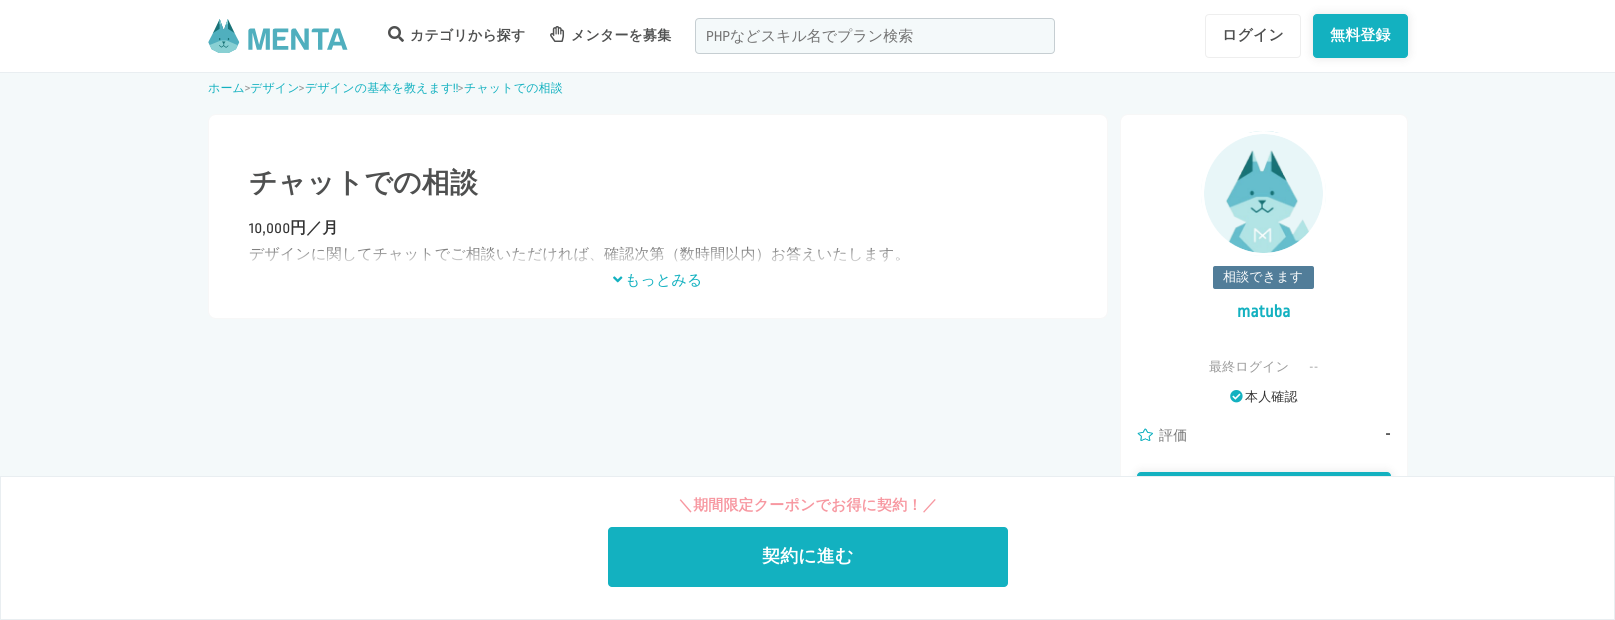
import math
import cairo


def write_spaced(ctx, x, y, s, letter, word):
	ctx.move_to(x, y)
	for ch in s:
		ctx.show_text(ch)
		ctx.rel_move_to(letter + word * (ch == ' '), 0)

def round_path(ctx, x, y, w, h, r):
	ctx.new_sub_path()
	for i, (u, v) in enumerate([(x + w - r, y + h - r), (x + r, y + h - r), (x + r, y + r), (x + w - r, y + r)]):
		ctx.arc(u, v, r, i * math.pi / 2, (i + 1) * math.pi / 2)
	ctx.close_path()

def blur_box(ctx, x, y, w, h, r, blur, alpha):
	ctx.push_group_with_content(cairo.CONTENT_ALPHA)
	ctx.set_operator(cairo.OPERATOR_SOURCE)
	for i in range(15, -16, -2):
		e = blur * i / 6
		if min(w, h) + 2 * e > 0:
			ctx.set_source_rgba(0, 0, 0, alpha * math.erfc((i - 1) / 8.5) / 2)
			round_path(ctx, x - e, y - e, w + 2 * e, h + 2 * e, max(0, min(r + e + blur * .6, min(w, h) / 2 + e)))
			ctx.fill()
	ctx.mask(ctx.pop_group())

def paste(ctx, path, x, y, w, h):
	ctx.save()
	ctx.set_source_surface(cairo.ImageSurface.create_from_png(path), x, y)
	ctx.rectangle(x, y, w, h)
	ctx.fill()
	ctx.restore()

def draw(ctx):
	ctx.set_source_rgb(0.957, 0.973, 0.98)
	ctx.paint()
	ctx.set_source_rgb(1, 1, 1)
	ctx.rectangle(0, 0, 1615, 72)
	ctx.fill()
	ctx.set_source_rgb(0.914, 0.933, 0.945)
	ctx.rectangle(0, 72, 1615, 1)
	ctx.fill()
	paste(ctx, 'media/1.png', 208, 19, 140, 34)
	paste(ctx, 'media/2.png', 388, 26, 16, 16)
	ctx.select_font_face('WenQuanYi Zen Hei', cairo.FONT_SLANT_NORMAL, cairo.FONT_WEIGHT_BOLD)
	ctx.set_font_size(14)
	ctx.set_source_rgb(0.31, 0.314, 0.314)
	write_spaced(ctx, 410, 40, 'カテゴリから探す', 0.15, 0)
	paste(ctx, 'media/3.png', 550, 26, 15, 16)
	write_spaced(ctx, 571, 40, 'メンターを募集', 0.15, 0)
	ctx.set_source_rgb(0.957, 0.973, 0.98)
	round_path(ctx, 695.5, 18.5, 359, 35, 3.5)
	ctx.fill_preserve()
	ctx.set_source_rgb(0.776, 0.808, 0.824)
	ctx.set_line_width(1)
	ctx.stroke()
	ctx.select_font_face('Ropa Sans')
	ctx.set_font_size(15)
	ctx.set_source_rgb(0.451, 0.451, 0.451)
	ctx.move_to(706, 41)
	ctx.show_text('PHP')
	ctx.select_font_face('WenQuanYi Zen Hei Medium')
	ctx.move_to(730, 41)
	ctx.show_text('などスキル名でプラン検索')
	round_path(ctx, 1205.5, 14.5, 95, 43, 3.5)
	ctx.set_source_rgb(0.933, 0.933, 0.933)
	ctx.stroke()
	ctx.select_font_face('WenQuanYi Zen Hei', cairo.FONT_SLANT_NORMAL, cairo.FONT_WEIGHT_BOLD)
	ctx.set_source_rgb(0.31, 0.314, 0.314)
	write_spaced(ctx, 1222, 40, 'ログイン', 0.15, 0)
	ctx.set_source_rgb(0, 0, 0)
	blur_box(ctx, 1313, 14, 95, 44, 4, 5, 0.1)
	ctx.set_source_rgb(0.075, 0.694, 0.753)
	round_path(ctx, 1313.5, 14.5, 94, 43, 3.5)
	ctx.fill_preserve()
	ctx.stroke()
	ctx.set_source_rgb(1, 1, 1)
	write_spaced(ctx, 1330, 40, '無料登録', 0.15, 0)
	ctx.select_font_face('WenQuanYi Zen Hei Medium')
	ctx.set_font_size(12)
	ctx.set_source_rgb(0.075, 0.694, 0.753)
	write_spaced(ctx, 208, 92, 'ホーム', 0.15, 0)
	ctx.select_font_face('Ropa Sans')
	ctx.set_font_size(13)
	ctx.set_source_rgb(0.6, 0.6, 0.6)
	write_spaced(ctx, 245, 92, '>', 0.15, 0)
	ctx.select_font_face('WenQuanYi Zen Hei Medium')
	ctx.set_font_size(12)
	ctx.set_source_rgb(0.075, 0.694, 0.753)
	write_spaced(ctx, 250, 92, 'デザイン', 0.15, 0)
	ctx.select_font_face('Ropa Sans')
	ctx.set_font_size(13)
	ctx.set_source_rgb(0.6, 0.6, 0.6)
	write_spaced(ctx, 299, 92, '>', 0.15, 0)
	ctx.select_font_face('WenQuanYi Zen Hei Medium')
	ctx.set_font_size(12)
	ctx.set_source_rgb(0.075, 0.694, 0.753)
	write_spaced(ctx, 305, 92, 'デザインの基本を教えます', 0.15, 0)
	ctx.select_font_face('Ropa Sans')
	write_spaced(ctx, 453, 92, '!!', 0.15, 0)
	ctx.set_font_size(13)
	ctx.set_source_rgb(0.6, 0.6, 0.6)
	write_spaced(ctx, 458, 92, '>', 0.15, 0)
	ctx.select_font_face('WenQuanYi Zen Hei Medium')
	ctx.set_font_size(12)
	ctx.set_source_rgb(0.075, 0.694, 0.753)
	write_spaced(ctx, 464, 92, 'チャットでの相談', 0.15, 0)
	ctx.set_source_rgb(1, 1, 1)
	round_path(ctx, 208.5, 114.5, 899, 204, 7.5)
	ctx.fill_preserve()
	ctx.set_source_rgb(0.965, 0.965, 0.965)
	ctx.stroke()
	ctx.select_font_face('WenQuanYi Zen Hei', cairo.FONT_SLANT_NORMAL, cairo.FONT_WEIGHT_BOLD)
	ctx.set_font_size(28)
	ctx.set_source_rgb(0.31, 0.314, 0.314)
	write_spaced(ctx, 249, 192, 'チャットでの相談', 0.15, 0)
	ctx.select_font_face('Ropa Sans')
	ctx.set_font_size(16)
	ctx.set_source_rgb(0.2, 0.2, 0.2)
	write_spaced(ctx, 249, 233, '10,000', 0.15, 0)
	ctx.select_font_face('WenQuanYi Zen Hei', cairo.FONT_SLANT_NORMAL, cairo.FONT_WEIGHT_BOLD)
	write_spaced(ctx, 290, 233, '円／月', 0.15, 0)
	ctx.select_font_face('WenQuanYi Zen Hei Medium')
	ctx.set_font_size(15)
	write_spaced(ctx, 249, 259, 'デザインに関してチャットでご相談いただければ、確認次第（数時間以内）お答えいたします。', 0.15, 0)
	gradient = cairo.LinearGradient(658, 238, 658, 268)
	gradient.add_color_stop_rgba(0, 1, 1, 1, 0)
	gradient.add_color_stop_rgba(1, 1, 1, 1, 1)
	ctx.set_source(gradient)
	ctx.rectangle(249, 246, 650, 16)
	ctx.fill()
	paste(ctx, 'media/4.png', 613, 276, 10, 7)
	ctx.set_source_rgb(0.075, 0.694, 0.753)
	write_spaced(ctx, 625, 285, 'もっとみる', 0.15, 0)
	ctx.set_source_rgb(1, 1, 1)
	round_path(ctx, 1120.5, 114.5, 287, 453, 7.5)
	ctx.fill_preserve()
	ctx.set_source_rgb(0.965, 0.965, 0.965)
	ctx.stroke()
	paste(ctx, 'media/5.png', 1201, 131, 125, 125)
	ctx.arc(1263.5, 193.5, 61, 0, 2 * math.pi)
	ctx.set_source_rgb(1, 1, 1)
	ctx.set_line_width(3)
	ctx.stroke()
	ctx.set_source_rgb(0.318, 0.49, 0.6)
	round_path(ctx, 1213, 266, 101, 23, 2)
	ctx.fill()
	ctx.set_font_size(13)
	ctx.set_source_rgb(1, 1, 1)
	write_spaced(ctx, 1223, 281, '相談できます', 0.15, 0)
	ctx.select_font_face('Ropa Sans', cairo.FONT_SLANT_NORMAL, cairo.FONT_WEIGHT_BOLD)
	ctx.set_font_size(18)
	ctx.set_source_rgb(0.075, 0.694, 0.753)
	write_spaced(ctx, 1237, 317, 'matuba', 0.15, 0)
	ctx.select_font_face('WenQuanYi Zen Hei Medium')
	ctx.set_font_size(13)
	ctx.set_source_rgb(0.6, 0.6, 0.6)
	write_spaced(ctx, 1209, 371, '最終ログイン', 0.15, 0)
	ctx.select_font_face('Ropa Sans')
	write_spaced(ctx, 1309, 371, '--', 0.15, 0)
	paste(ctx, 'media/6.png', 1230, 390, 13, 13)
	ctx.select_font_face('WenQuanYi Zen Hei Medium')
	ctx.set_source_rgb(0.2, 0.2, 0.2)
	write_spaced(ctx, 1245, 401, '本人確認', 0.15, 0)
	paste(ctx, 'media/7.png', 1137, 428, 16, 13)
	ctx.set_font_size(14)
	ctx.set_source_rgb(0.451, 0.451, 0.451)
	write_spaced(ctx, 1159, 440, '評価', 0.15, 0)
	ctx.select_font_face('Ropa Sans', cairo.FONT_SLANT_NORMAL, cairo.FONT_WEIGHT_BOLD)
	ctx.set_font_size(16)
	ctx.set_source_rgb(0.2, 0.2, 0.2)
	write_spaced(ctx, 1385, 439, '-', 0.15, 0)
	ctx.set_source_rgb(0, 0, 0)
	blur_box(ctx, 1137, 472, 254, 44, 4, 5, 0.1)
	ctx.set_source_rgb(0.075, 0.694, 0.753)
	round_path(ctx, 1137.5, 472.5, 253, 43, 3.5)
	ctx.fill_preserve()
	ctx.set_line_width(1)
	ctx.stroke()
	ctx.set_source_rgb(1, 1, 1)
	ctx.rectangle(0.5, 476.5, 1614, 143)
	ctx.fill_preserve()
	ctx.set_source_rgb(0.914, 0.933, 0.945)
	ctx.stroke()
	ctx.select_font_face('WenQuanYi Zen Hei', cairo.FONT_SLANT_NORMAL, cairo.FONT_WEIGHT_BOLD)
	ctx.set_font_size(15)
	ctx.set_source_rgb(0.965, 0.596, 0.631)
	write_spaced(ctx, 678, 510, '＼期間限定クーポンでお得に契約！／', 0.15, 0)
	ctx.set_source_rgb(0.075, 0.694, 0.753)
	round_path(ctx, 608, 527, 400, 60, 4)
	ctx.fill()
	ctx.set_font_size(18)
	ctx.set_source_rgb(1, 1, 1)
	write_spaced(ctx, 762, 562, '契約に進む', 0.15, 0)


surface = cairo.ImageSurface(cairo.FORMAT_RGB24, 1615, 620)
ctx = cairo.Context(surface)
options = cairo.FontOptions()
options.set_hint_metrics(cairo.HINT_METRICS_OFF)
options.set_hint_style(cairo.HINT_STYLE_NONE)
ctx.set_font_options(options)
ctx.set_miter_limit(4)
draw(ctx)
surface.write_to_png('image.png')
